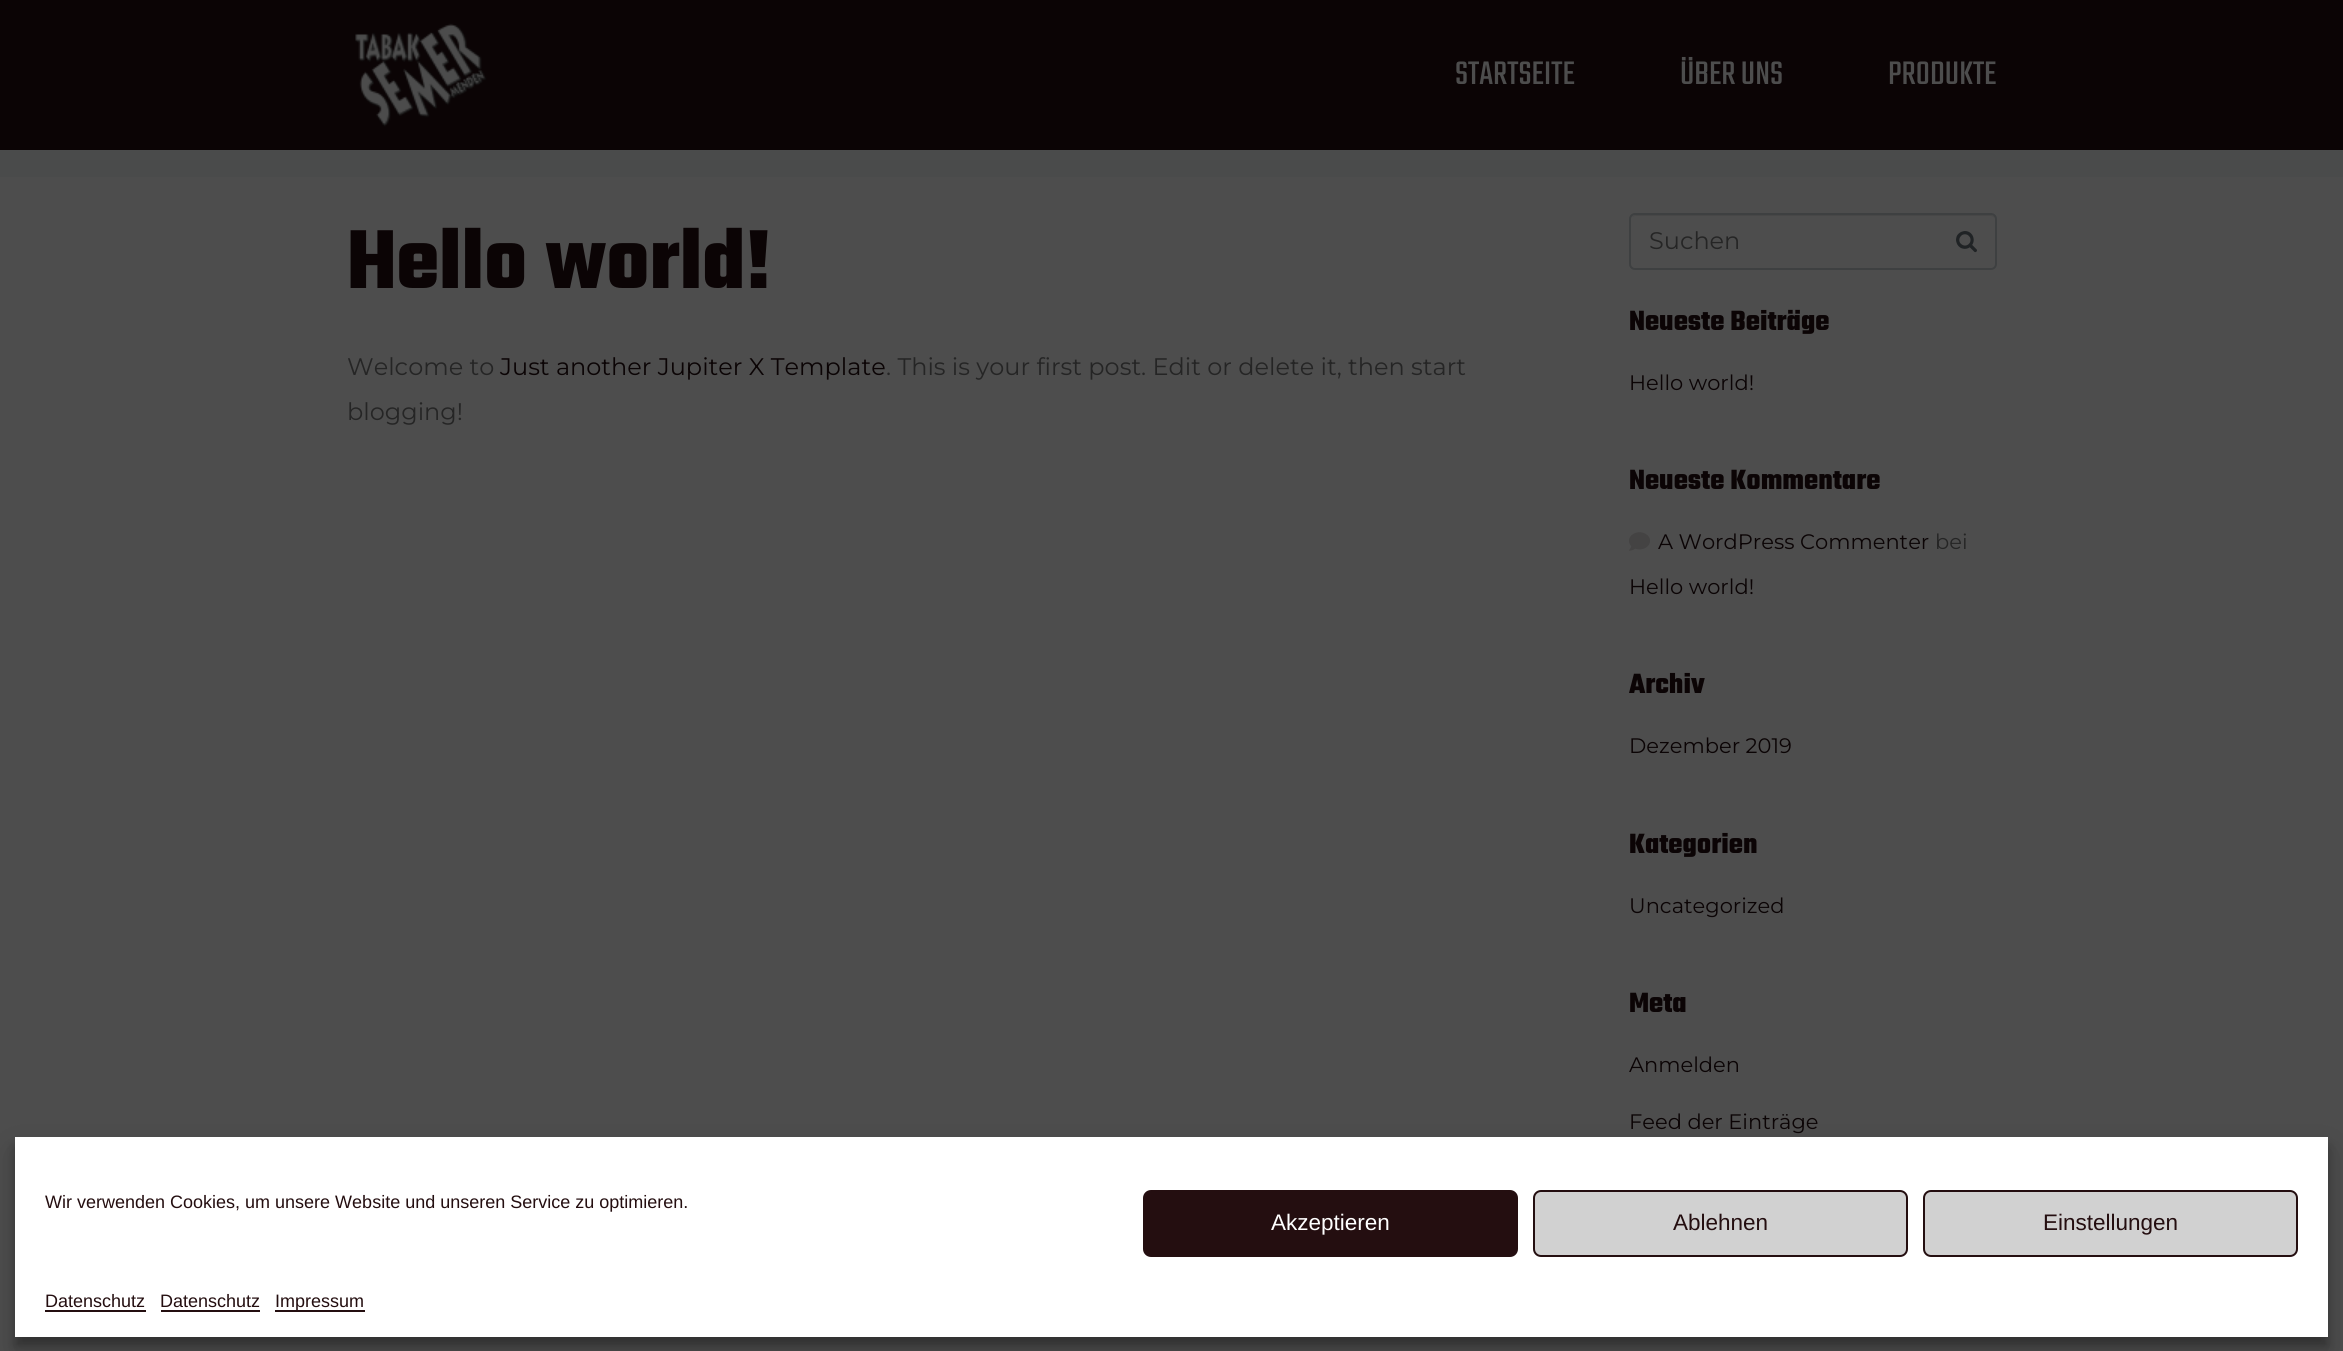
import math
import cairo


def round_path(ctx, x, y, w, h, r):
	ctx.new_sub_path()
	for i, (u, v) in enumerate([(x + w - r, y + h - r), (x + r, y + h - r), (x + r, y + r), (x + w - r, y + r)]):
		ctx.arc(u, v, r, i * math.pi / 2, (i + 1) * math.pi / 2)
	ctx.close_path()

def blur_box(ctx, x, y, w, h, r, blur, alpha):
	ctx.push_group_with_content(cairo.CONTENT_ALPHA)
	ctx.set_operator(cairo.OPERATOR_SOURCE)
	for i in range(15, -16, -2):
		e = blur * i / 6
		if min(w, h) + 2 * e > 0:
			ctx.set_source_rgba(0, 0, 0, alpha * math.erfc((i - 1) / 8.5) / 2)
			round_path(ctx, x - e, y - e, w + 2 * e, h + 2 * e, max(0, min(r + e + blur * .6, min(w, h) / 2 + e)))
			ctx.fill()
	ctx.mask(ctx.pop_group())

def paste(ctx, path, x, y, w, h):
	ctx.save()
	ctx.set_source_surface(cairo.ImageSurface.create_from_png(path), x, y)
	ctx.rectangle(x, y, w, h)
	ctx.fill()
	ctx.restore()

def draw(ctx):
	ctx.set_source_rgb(0.302, 0.302, 0.302)
	ctx.paint()
	ctx.set_source_rgb(0.043, 0.016, 0.02)
	ctx.rectangle(0, 0, 2343, 150)
	ctx.fill()
	paste(ctx, 'media/1.png', 355, 23, 132, 104)
	ctx.select_font_face('Teko')
	ctx.set_font_size(36)
	ctx.set_source_rgb(0.302, 0.302, 0.302)
	for x, y, s in [
		(1455, 84, 'STARTSEITE'),
		(1680, 84, 'ÜBER UNS'),
		(1888, 84, 'PRODUKTE'),
	]:
		ctx.move_to(x, y)
		ctx.show_text(s)
	ctx.set_source_rgb(0.29, 0.294, 0.294)
	ctx.rectangle(0, 150, 2343, 27)
	ctx.fill()
	ctx.select_font_face('Teko', cairo.FONT_SLANT_NORMAL, cairo.FONT_WEIGHT_BOLD)
	ctx.set_font_size(90)
	ctx.set_source_rgb(0.043, 0.016, 0.02)
	ctx.move_to(347, 288)
	ctx.show_text('Hello world!')
	ctx.select_font_face('Montserrat Thin')
	ctx.set_font_size(24)
	ctx.set_source_rgb(0.145, 0.145, 0.145)
	ctx.move_to(347, 375)
	ctx.show_text('Welcome to')
	ctx.set_source_rgb(0.043, 0.016, 0.02)
	ctx.move_to(500, 375)
	ctx.show_text('Just another Jupiter X Template')
	ctx.set_source_rgb(0.145, 0.145, 0.145)
	ctx.move_to(886, 375)
	ctx.show_text('. This is your first post. Edit or delete it, then start')
	ctx.move_to(347, 420)
	ctx.show_text('blogging!')
	ctx.set_source_rgb(0.278, 0.278, 0.278)
	ctx.new_path()
	ctx.move_to(1635, 216)
	ctx.line_to(1990, 216)
	ctx.curve_to(1993, 216, 1995, 218, 1995, 220)
	ctx.curve_to(1995, 217, 1993, 215, 1990, 215)
	ctx.line_to(1636, 215)
	ctx.curve_to(1634, 215, 1633, 216, 1632, 217)
	ctx.close_path()
	ctx.fill()
	round_path(ctx, 1630, 214, 366, 55, 5)
	ctx.set_source_rgb(0.243, 0.251, 0.255)
	ctx.stroke()
	ctx.set_source_rgb(0.145, 0.145, 0.145)
	ctx.move_to(1649, 249)
	ctx.show_text('Suchen')
	paste(ctx, 'media/2.png', 1956, 231, 21, 22)
	ctx.select_font_face('Teko', cairo.FONT_SLANT_NORMAL, cairo.FONT_WEIGHT_BOLD)
	ctx.set_font_size(30)
	ctx.set_source_rgb(0.043, 0.016, 0.02)
	ctx.move_to(1629, 330)
	ctx.show_text('Neueste Beiträge')
	ctx.select_font_face('Montserrat Thin')
	ctx.set_font_size(21)
	ctx.move_to(1629, 390)
	ctx.show_text('Hello world!')
	ctx.select_font_face('Teko', cairo.FONT_SLANT_NORMAL, cairo.FONT_WEIGHT_BOLD)
	ctx.set_font_size(30)
	ctx.move_to(1629, 489)
	ctx.show_text('Neueste Kommentare')
	paste(ctx, 'media/3.png', 1629, 532, 21, 19)
	ctx.select_font_face('Montserrat Thin')
	ctx.set_font_size(21)
	ctx.move_to(1658, 549)
	ctx.show_text('A WordPress Commenter')
	ctx.set_source_rgb(0.145, 0.145, 0.145)
	ctx.move_to(1935, 549)
	ctx.show_text('bei')
	ctx.set_source_rgb(0.043, 0.016, 0.02)
	ctx.move_to(1629, 594)
	ctx.show_text('Hello world!')
	ctx.select_font_face('Teko', cairo.FONT_SLANT_NORMAL, cairo.FONT_WEIGHT_BOLD)
	ctx.set_font_size(30)
	ctx.move_to(1629, 693)
	ctx.show_text('Archiv')
	ctx.select_font_face('Montserrat Thin')
	ctx.set_font_size(21)
	ctx.move_to(1629, 753)
	ctx.show_text('Dezember 2019')
	ctx.select_font_face('Teko', cairo.FONT_SLANT_NORMAL, cairo.FONT_WEIGHT_BOLD)
	ctx.set_font_size(30)
	ctx.move_to(1629, 853)
	ctx.show_text('Kategorien')
	ctx.select_font_face('Montserrat Thin')
	ctx.set_font_size(21)
	ctx.move_to(1629, 913)
	ctx.show_text('Uncategorized')
	ctx.select_font_face('Teko', cairo.FONT_SLANT_NORMAL, cairo.FONT_WEIGHT_BOLD)
	ctx.set_font_size(30)
	ctx.move_to(1629, 1012)
	ctx.show_text('Meta')
	ctx.select_font_face('Montserrat Thin')
	ctx.set_font_size(21)
	ctx.move_to(1629, 1072)
	ctx.show_text('Anmelden')
	ctx.move_to(1629, 1129)
	ctx.show_text('Feed der Einträge')
	ctx.set_source_rgb(0, 0, 0)
	blur_box(ctx, 15, 1146, 2313, 200, 0, 4.5, 0.23)
	blur_box(ctx, 15, 1152, 2313, 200, 0, 15, 0.19)
	ctx.set_source_rgb(1, 1, 1)
	ctx.rectangle(15, 1137, 2313, 200)
	ctx.fill()
	ctx.select_font_face('Liberation Sans')
	ctx.set_font_size(18)
	ctx.set_source_rgb(0.141, 0.055, 0.063)
	ctx.move_to(45, 1208)
	ctx.show_text('Wir verwenden Cookies, um unsere Website und unseren Service zu optimieren.')
	round_path(ctx, 1144, 1191, 373, 65, 7)
	ctx.fill_preserve()
	ctx.stroke()
	ctx.set_font_size(22.5)
	ctx.set_source_rgb(1, 1, 1)
	ctx.move_to(1271, 1230)
	ctx.show_text('Akzeptieren')
	ctx.set_source_rgb(0.82, 0.82, 0.82)
	round_path(ctx, 1534, 1191, 373, 65, 7)
	ctx.fill_preserve()
	ctx.set_source_rgb(0.141, 0.055, 0.063)
	ctx.stroke()
	ctx.move_to(1673, 1230)
	ctx.show_text('Ablehnen')
	ctx.set_source_rgb(0.82, 0.82, 0.82)
	round_path(ctx, 1924, 1191, 373, 65, 7)
	ctx.fill_preserve()
	ctx.set_source_rgb(0.141, 0.055, 0.063)
	ctx.stroke()
	ctx.move_to(2043, 1230)
	ctx.show_text('Einstellungen')
	ctx.set_font_size(18)
	ctx.move_to(45, 1307)
	ctx.show_text('Datenschutz')
	ctx.rectangle(45, 1310, 101, 2)
	ctx.fill()
	ctx.move_to(160, 1307)
	ctx.show_text('Datenschutz')
	ctx.rectangle(161, 1310, 99, 2)
	ctx.fill()
	ctx.rectangle(275, 1310, 90, 2)
	ctx.fill()
	ctx.move_to(275, 1307)
	ctx.show_text('Impressum')


surface = cairo.ImageSurface(cairo.FORMAT_RGB24, 2343, 1351)
ctx = cairo.Context(surface)
options = cairo.FontOptions()
options.set_hint_metrics(cairo.HINT_METRICS_OFF)
options.set_hint_style(cairo.HINT_STYLE_NONE)
ctx.set_font_options(options)
ctx.set_miter_limit(4)
draw(ctx)
surface.write_to_png('image.png')
